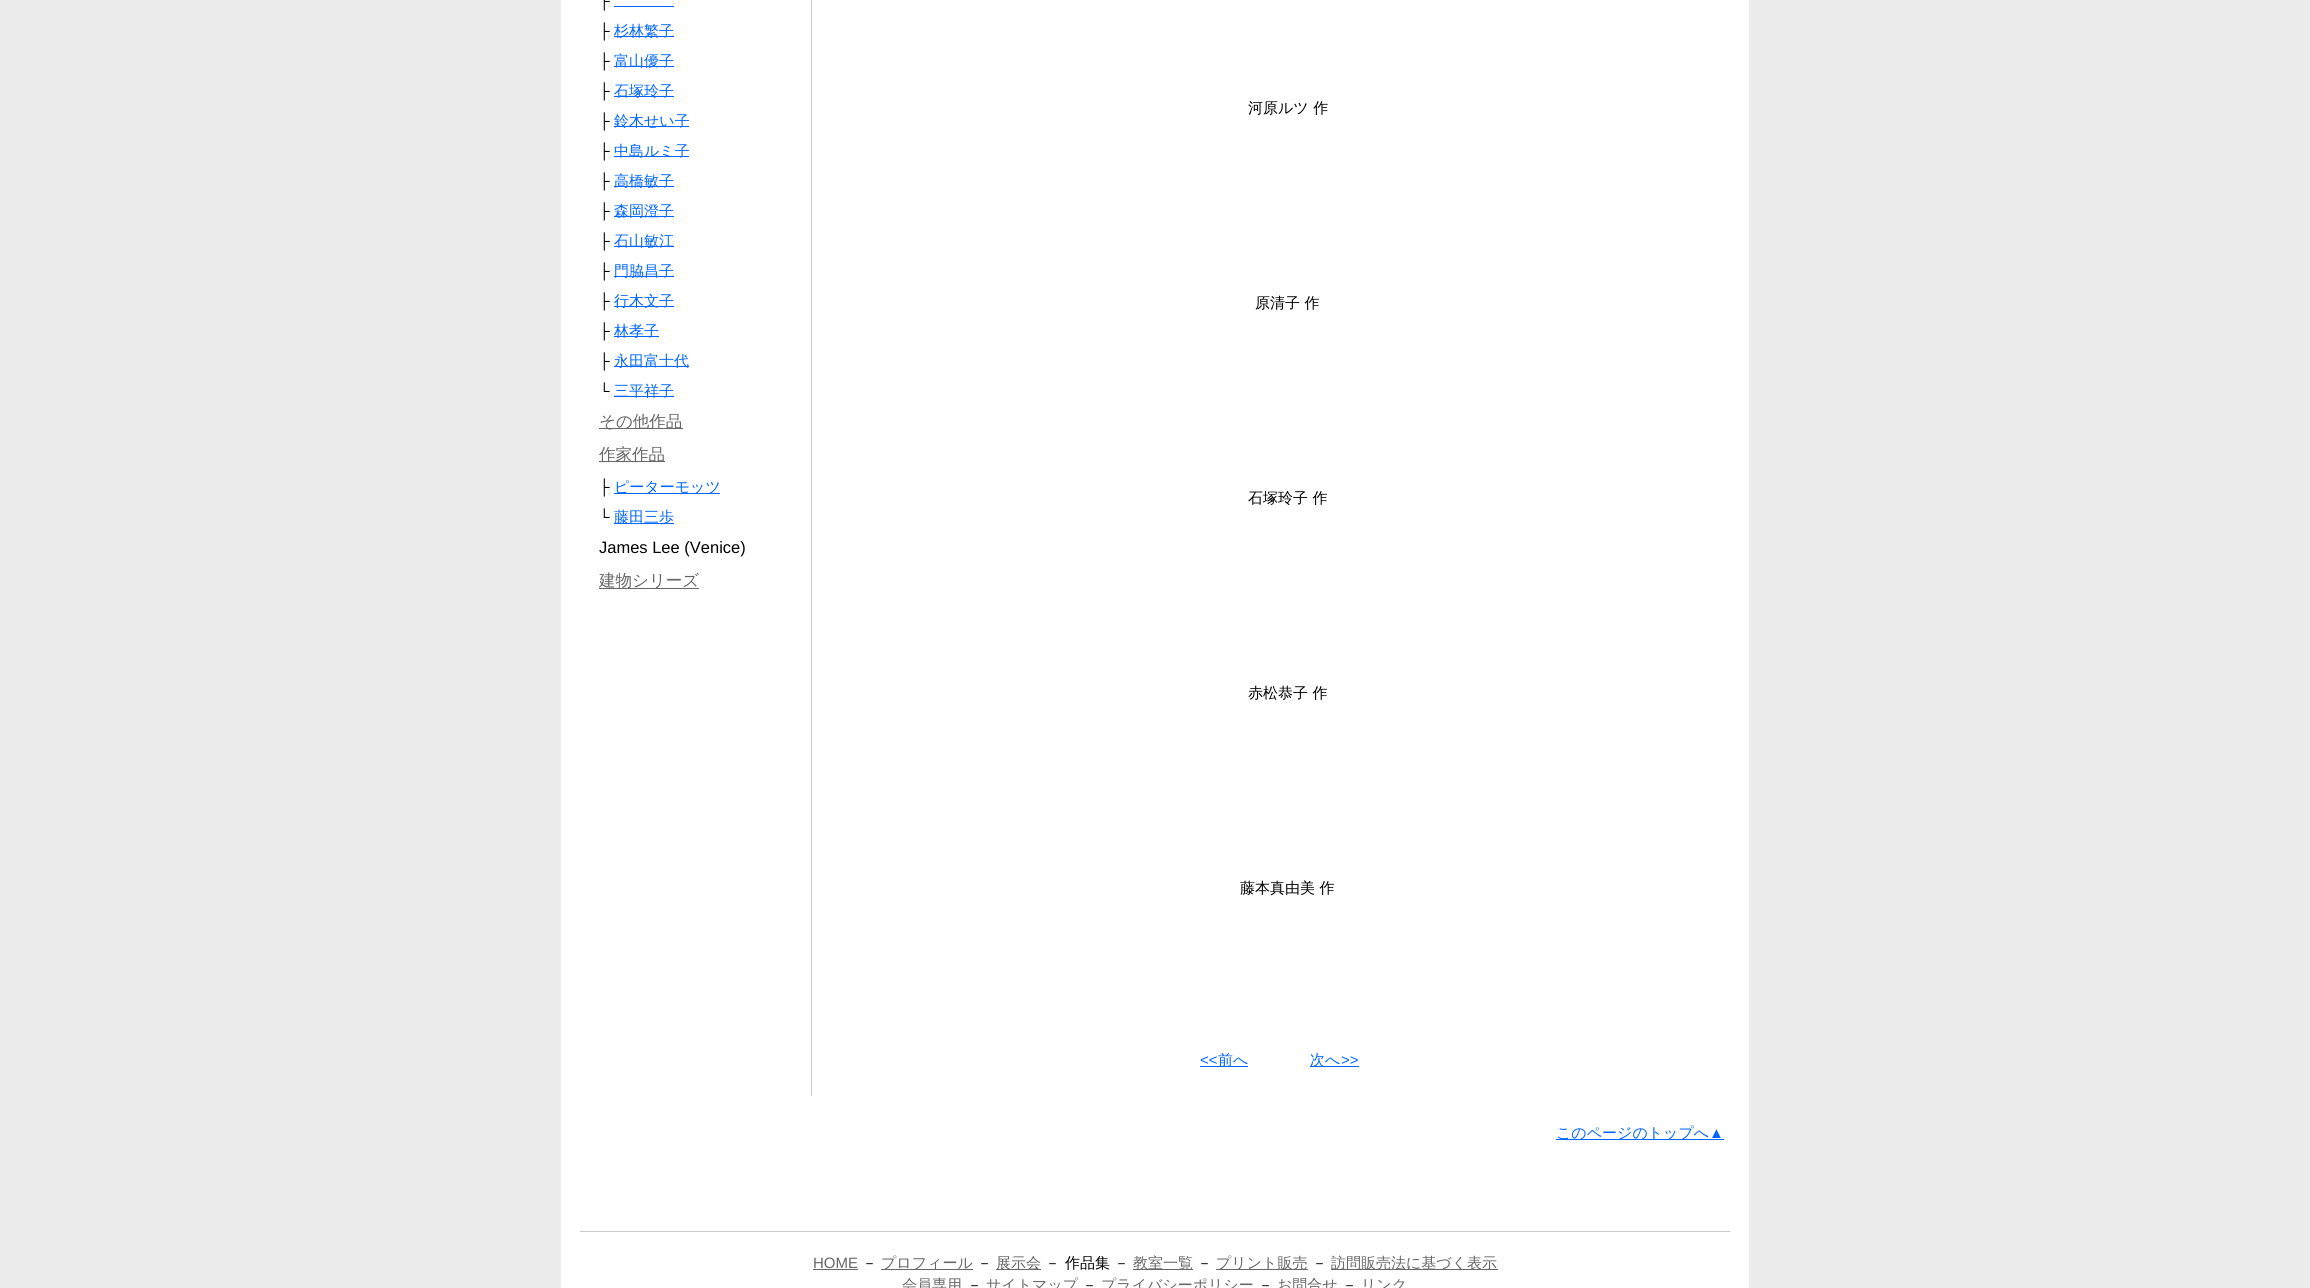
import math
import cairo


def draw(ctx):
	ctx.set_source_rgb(0.922, 0.922, 0.922)
	ctx.paint()
	ctx.set_source_rgb(1, 1, 1)
	ctx.rectangle(561, 0, 1188, 1288)
	ctx.fill()
	ctx.select_font_face('Liberation Sans')
	ctx.set_font_size(15)
	ctx.set_source_rgb(0, 0, 0)
	ctx.move_to(599, 6)
	ctx.show_text('├')
	ctx.set_source_rgb(0, 0.4, 1)
	ctx.rectangle(614, 6, 60, 1)
	ctx.fill()
	ctx.set_source_rgb(0, 0, 0)
	ctx.move_to(599, 36)
	ctx.show_text('├')
	ctx.set_source_rgb(0, 0.4, 1)
	ctx.rectangle(614, 36, 60, 1)
	ctx.fill()
	ctx.select_font_face('WenQuanYi Zen Hei Medium')
	ctx.move_to(614, 36)
	ctx.show_text('杉林繁子')
	ctx.select_font_face('Liberation Sans')
	ctx.set_source_rgb(0, 0, 0)
	ctx.move_to(599, 66)
	ctx.show_text('├')
	ctx.set_source_rgb(0, 0.4, 1)
	ctx.rectangle(614, 66, 60, 1)
	ctx.fill()
	ctx.select_font_face('WenQuanYi Zen Hei Medium')
	ctx.move_to(614, 66)
	ctx.show_text('富山優子')
	ctx.select_font_face('Liberation Sans')
	ctx.set_source_rgb(0, 0, 0)
	ctx.move_to(599, 96)
	ctx.show_text('├')
	ctx.set_source_rgb(0, 0.4, 1)
	ctx.rectangle(614, 96, 60, 1)
	ctx.fill()
	ctx.select_font_face('WenQuanYi Zen Hei Medium')
	ctx.move_to(614, 96)
	ctx.show_text('石塚玲子')
	ctx.select_font_face('Liberation Sans')
	ctx.set_source_rgb(0, 0, 0)
	ctx.move_to(599, 126)
	ctx.show_text('├')
	ctx.set_source_rgb(0, 0.4, 1)
	ctx.rectangle(614, 126, 75, 1)
	ctx.fill()
	ctx.select_font_face('WenQuanYi Zen Hei Medium')
	ctx.move_to(614, 126)
	ctx.show_text('鈴木せい子')
	ctx.select_font_face('Liberation Sans')
	ctx.set_source_rgb(0, 0, 0)
	ctx.move_to(599, 156)
	ctx.show_text('├')
	ctx.set_source_rgb(0, 0.4, 1)
	ctx.rectangle(614, 156, 75, 1)
	ctx.fill()
	ctx.select_font_face('WenQuanYi Zen Hei Medium')
	ctx.move_to(614, 156)
	ctx.show_text('中島ルミ子')
	ctx.select_font_face('Liberation Sans')
	ctx.set_source_rgb(0, 0, 0)
	ctx.move_to(599, 186)
	ctx.show_text('├')
	ctx.set_source_rgb(0, 0.4, 1)
	ctx.rectangle(614, 186, 60, 1)
	ctx.fill()
	ctx.select_font_face('WenQuanYi Zen Hei Medium')
	ctx.move_to(614, 186)
	ctx.show_text('高橋敏子')
	ctx.select_font_face('Liberation Sans')
	ctx.set_source_rgb(0, 0, 0)
	ctx.move_to(599, 216)
	ctx.show_text('├')
	ctx.set_source_rgb(0, 0.4, 1)
	ctx.rectangle(614, 216, 60, 1)
	ctx.fill()
	ctx.select_font_face('WenQuanYi Zen Hei Medium')
	ctx.move_to(614, 216)
	ctx.show_text('森岡澄子')
	ctx.select_font_face('Liberation Sans')
	ctx.set_source_rgb(0, 0, 0)
	ctx.move_to(599, 246)
	ctx.show_text('├')
	ctx.set_source_rgb(0, 0.4, 1)
	ctx.rectangle(614, 246, 60, 1)
	ctx.fill()
	ctx.select_font_face('WenQuanYi Zen Hei Medium')
	ctx.move_to(614, 246)
	ctx.show_text('石山敏江')
	ctx.select_font_face('Liberation Sans')
	ctx.set_source_rgb(0, 0, 0)
	ctx.move_to(599, 276)
	ctx.show_text('├')
	ctx.set_source_rgb(0, 0.4, 1)
	ctx.rectangle(614, 276, 60, 1)
	ctx.fill()
	ctx.select_font_face('WenQuanYi Zen Hei Medium')
	ctx.move_to(614, 276)
	ctx.show_text('門脇昌子')
	ctx.select_font_face('Liberation Sans')
	ctx.set_source_rgb(0, 0, 0)
	ctx.move_to(599, 306)
	ctx.show_text('├')
	ctx.set_source_rgb(0, 0.4, 1)
	ctx.rectangle(614, 306, 60, 1)
	ctx.fill()
	ctx.select_font_face('WenQuanYi Zen Hei Medium')
	ctx.move_to(614, 306)
	ctx.show_text('行木文子')
	ctx.select_font_face('Liberation Sans')
	ctx.set_source_rgb(0, 0, 0)
	ctx.move_to(599, 336)
	ctx.show_text('├')
	ctx.set_source_rgb(0, 0.4, 1)
	ctx.rectangle(614, 336, 45, 1)
	ctx.fill()
	ctx.select_font_face('WenQuanYi Zen Hei Medium')
	ctx.move_to(614, 336)
	ctx.show_text('林孝子')
	ctx.select_font_face('Liberation Sans')
	ctx.set_source_rgb(0, 0, 0)
	ctx.move_to(599, 366)
	ctx.show_text('├')
	ctx.set_source_rgb(0, 0.4, 1)
	ctx.rectangle(614, 366, 75, 1)
	ctx.fill()
	ctx.select_font_face('WenQuanYi Zen Hei Medium')
	ctx.move_to(614, 366)
	ctx.show_text('永田富士代')
	ctx.select_font_face('Liberation Sans')
	ctx.set_source_rgb(0, 0, 0)
	ctx.move_to(599, 396)
	ctx.show_text('└')
	ctx.set_source_rgb(0, 0.4, 1)
	ctx.rectangle(614, 396, 60, 1)
	ctx.fill()
	ctx.select_font_face('WenQuanYi Zen Hei Medium')
	ctx.move_to(614, 396)
	ctx.show_text('三平祥子')
	ctx.set_source_rgb(0.4, 0.4, 0.4)
	ctx.rectangle(599, 428, 84, 1)
	ctx.fill()
	ctx.set_font_size(16.5)
	ctx.move_to(599, 427)
	ctx.show_text('その他作品')
	ctx.rectangle(599, 461, 66, 1)
	ctx.fill()
	ctx.move_to(599, 460)
	ctx.show_text('作家作品')
	ctx.select_font_face('Liberation Sans')
	ctx.set_font_size(15)
	ctx.set_source_rgb(0, 0, 0)
	ctx.move_to(599, 492)
	ctx.show_text('├')
	ctx.set_source_rgb(0, 0.4, 1)
	ctx.rectangle(614, 493, 106, 1)
	ctx.fill()
	ctx.select_font_face('WenQuanYi Zen Hei Medium')
	ctx.move_to(614, 492)
	ctx.show_text('ピーターモッツ')
	ctx.select_font_face('Liberation Sans')
	ctx.set_source_rgb(0, 0, 0)
	ctx.move_to(599, 522)
	ctx.show_text('└')
	ctx.set_source_rgb(0, 0.4, 1)
	ctx.rectangle(614, 523, 60, 1)
	ctx.fill()
	ctx.select_font_face('WenQuanYi Zen Hei Medium')
	ctx.move_to(614, 522)
	ctx.show_text('藤田三歩')
	ctx.select_font_face('Liberation Sans')
	ctx.set_font_size(16.5)
	ctx.set_source_rgb(0, 0, 0)
	ctx.move_to(599, 553)
	ctx.show_text('James Lee (Venice)')
	ctx.set_source_rgb(0.4, 0.4, 0.4)
	ctx.rectangle(599, 588, 100, 1)
	ctx.fill()
	ctx.select_font_face('WenQuanYi Zen Hei Medium')
	ctx.move_to(599, 586)
	ctx.show_text('建物シリーズ')
	ctx.set_source_rgb(0.8, 0.8, 0.8)
	ctx.rectangle(811, 0, 1, 1096)
	ctx.fill()
	ctx.set_font_size(15)
	ctx.set_source_rgb(0, 0, 0)
	for x, y, s in [
		(1248, 113, '河原ルツ 作'),
		(1255, 308, '原清子 作'),
		(1248, 503, '石塚玲子 作'),
		(1248, 698, '赤松恭子 作'),
		(1240, 893, '藤本真由美 作'),
	]:
		ctx.move_to(x, y)
		ctx.show_text(s)
	ctx.select_font_face('Liberation Sans')
	ctx.set_source_rgb(0, 0.4, 1)
	ctx.move_to(1200, 1065)
	ctx.show_text('<<')
	ctx.rectangle(1200, 1066, 48, 1)
	ctx.fill()
	ctx.select_font_face('WenQuanYi Zen Hei Medium')
	ctx.move_to(1218, 1065)
	ctx.show_text('前へ')
	ctx.rectangle(1310, 1066, 49, 1)
	ctx.fill()
	ctx.move_to(1310, 1065)
	ctx.show_text('次へ')
	ctx.select_font_face('Liberation Sans')
	ctx.move_to(1341, 1065)
	ctx.show_text('>>')
	ctx.rectangle(1556, 1139, 168, 1)
	ctx.fill()
	ctx.select_font_face('WenQuanYi Zen Hei Medium')
	ctx.move_to(1556, 1138)
	ctx.show_text('このページのトップへ')
	ctx.select_font_face('Liberation Sans')
	ctx.move_to(1709, 1138)
	ctx.show_text('▲')
	ctx.set_source_rgb(0.792, 0.792, 0.792)
	ctx.rectangle(580, 1231, 1150, 1)
	ctx.fill()
	ctx.set_source_rgb(0.4, 0.4, 0.4)
	ctx.move_to(813, 1268)
	ctx.show_text('HOME')
	ctx.rectangle(813, 1269, 45, 1)
	ctx.fill()
	ctx.select_font_face('WenQuanYi Zen Hei Medium')
	ctx.set_source_rgb(0, 0, 0)
	ctx.move_to(862, 1268)
	ctx.show_text('－')
	ctx.set_source_rgb(0.4, 0.4, 0.4)
	ctx.rectangle(881, 1269, 92, 1)
	ctx.fill()
	ctx.move_to(881, 1268)
	ctx.show_text('プロフィール')
	ctx.set_source_rgb(0, 0, 0)
	ctx.move_to(977, 1268)
	ctx.show_text('－')
	ctx.set_source_rgb(0.4, 0.4, 0.4)
	ctx.rectangle(996, 1269, 45, 1)
	ctx.fill()
	ctx.move_to(996, 1268)
	ctx.show_text('展示会')
	ctx.set_source_rgb(0, 0, 0)
	for x, y, s in [
		(1045, 1268, '－'),
		(1065, 1268, '作品集'),
		(1114, 1268, '－'),
	]:
		ctx.move_to(x, y)
		ctx.show_text(s)
	ctx.set_source_rgb(0.4, 0.4, 0.4)
	ctx.rectangle(1133, 1269, 60, 1)
	ctx.fill()
	ctx.move_to(1133, 1268)
	ctx.show_text('教室一覧')
	ctx.set_source_rgb(0, 0, 0)
	ctx.move_to(1197, 1268)
	ctx.show_text('－')
	ctx.set_source_rgb(0.4, 0.4, 0.4)
	ctx.rectangle(1216, 1269, 92, 1)
	ctx.fill()
	ctx.move_to(1216, 1268)
	ctx.show_text('プリント販売')
	ctx.set_source_rgb(0, 0, 0)
	ctx.move_to(1312, 1268)
	ctx.show_text('－')
	ctx.set_source_rgb(0.4, 0.4, 0.4)
	ctx.rectangle(1331, 1269, 167, 1)
	ctx.fill()
	ctx.move_to(1331, 1268)
	ctx.show_text('訪問販売法に基づく表示')
	ctx.move_to(902, 1290)
	ctx.show_text('会員専用')
	ctx.set_source_rgb(0, 0, 0)
	ctx.move_to(967, 1290)
	ctx.show_text('－')
	ctx.set_source_rgb(0.4, 0.4, 0.4)
	ctx.move_to(986, 1290)
	ctx.show_text('サイトマップ')
	ctx.set_source_rgb(0, 0, 0)
	ctx.move_to(1082, 1290)
	ctx.show_text('－')
	ctx.set_source_rgb(0.4, 0.4, 0.4)
	ctx.move_to(1101, 1290)
	ctx.show_text('プライバシーポリシー')
	ctx.set_source_rgb(0, 0, 0)
	ctx.move_to(1258, 1290)
	ctx.show_text('－')
	ctx.set_source_rgb(0.4, 0.4, 0.4)
	ctx.move_to(1277, 1290)
	ctx.show_text('お問合せ')
	ctx.set_source_rgb(0, 0, 0)
	ctx.move_to(1342, 1290)
	ctx.show_text('－')
	ctx.set_source_rgb(0.4, 0.4, 0.4)
	ctx.move_to(1361, 1290)
	ctx.show_text('リンク')


surface = cairo.ImageSurface(cairo.FORMAT_RGB24, 2310, 1288)
ctx = cairo.Context(surface)
options = cairo.FontOptions()
options.set_hint_metrics(cairo.HINT_METRICS_OFF)
options.set_hint_style(cairo.HINT_STYLE_NONE)
ctx.set_font_options(options)
ctx.set_miter_limit(4)
draw(ctx)
surface.write_to_png('image.png')
